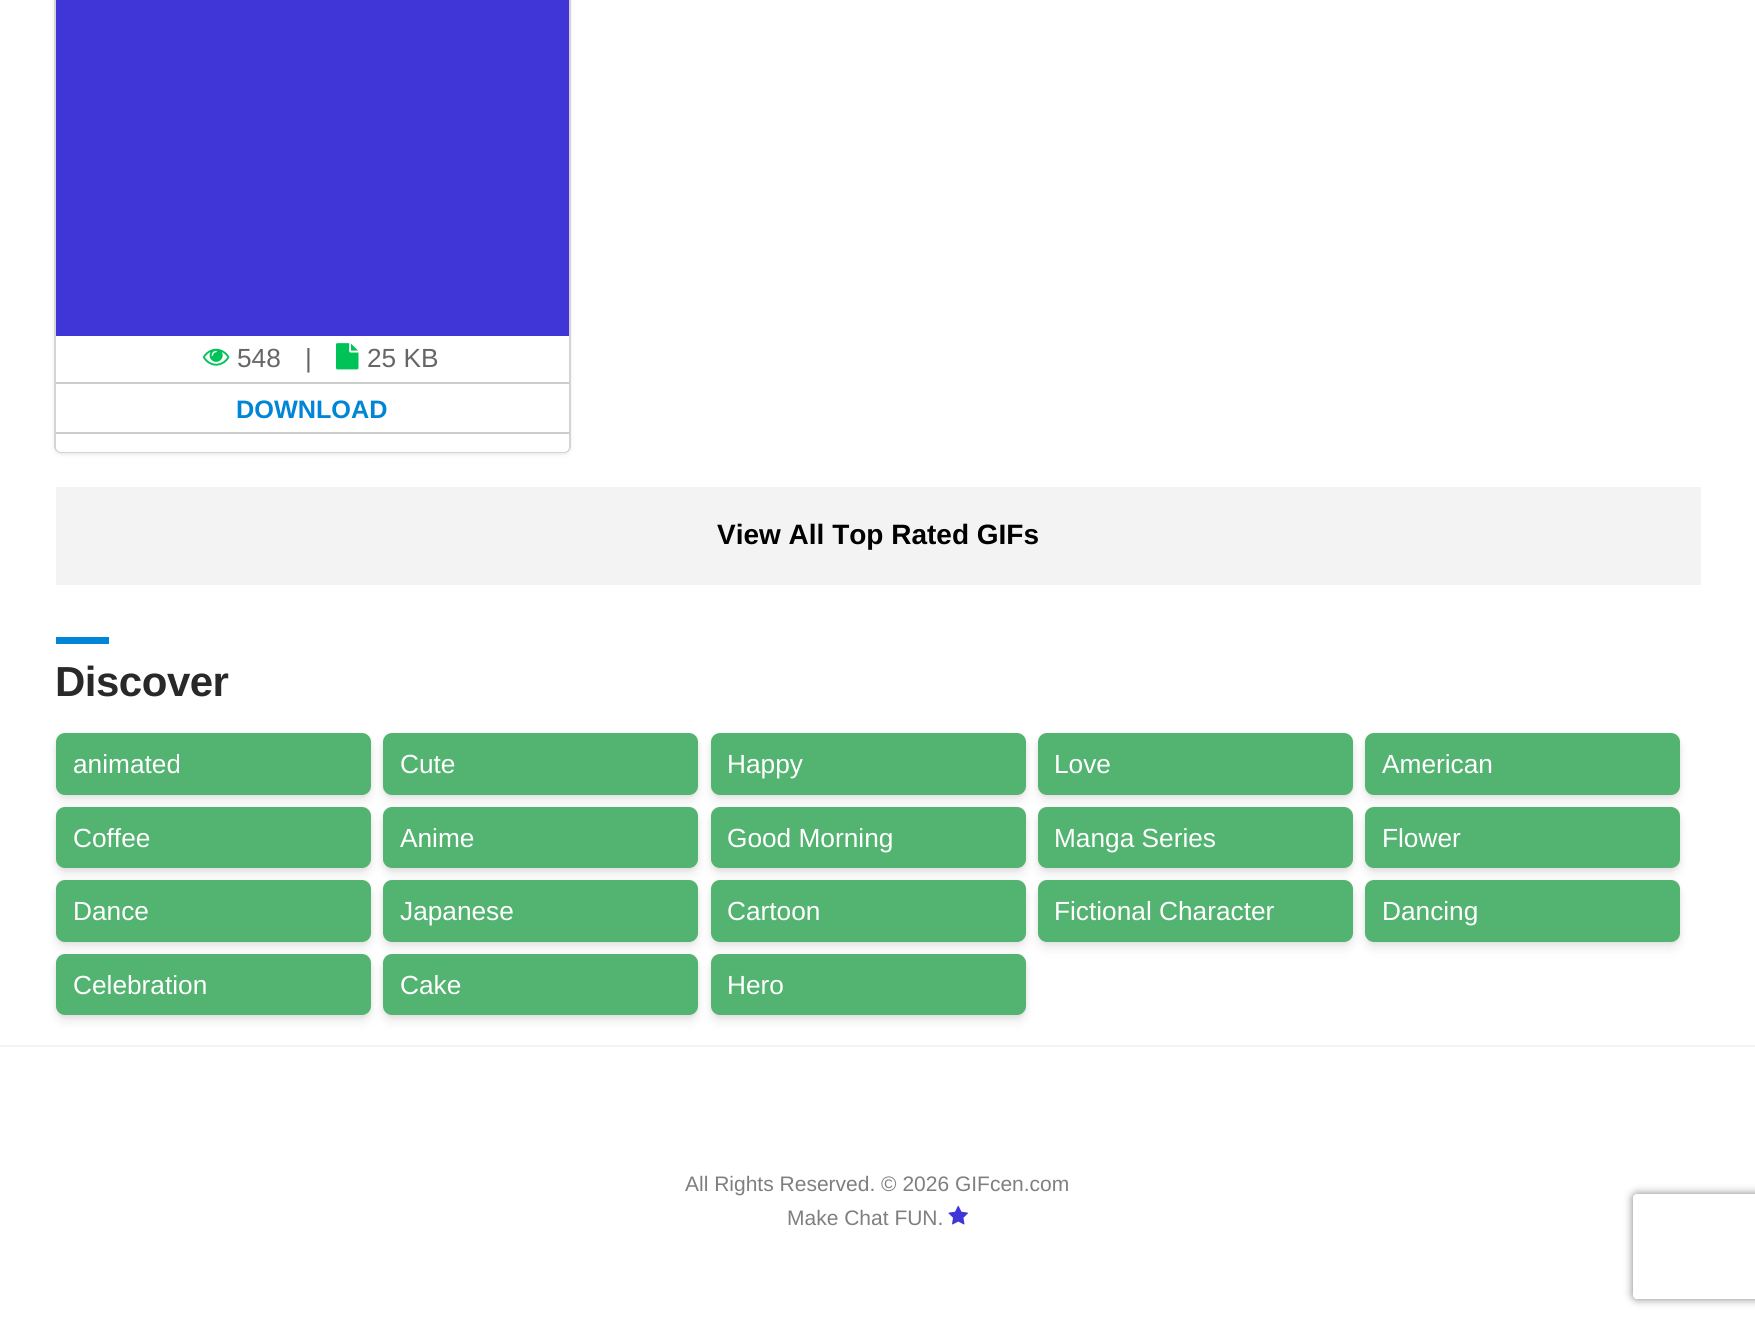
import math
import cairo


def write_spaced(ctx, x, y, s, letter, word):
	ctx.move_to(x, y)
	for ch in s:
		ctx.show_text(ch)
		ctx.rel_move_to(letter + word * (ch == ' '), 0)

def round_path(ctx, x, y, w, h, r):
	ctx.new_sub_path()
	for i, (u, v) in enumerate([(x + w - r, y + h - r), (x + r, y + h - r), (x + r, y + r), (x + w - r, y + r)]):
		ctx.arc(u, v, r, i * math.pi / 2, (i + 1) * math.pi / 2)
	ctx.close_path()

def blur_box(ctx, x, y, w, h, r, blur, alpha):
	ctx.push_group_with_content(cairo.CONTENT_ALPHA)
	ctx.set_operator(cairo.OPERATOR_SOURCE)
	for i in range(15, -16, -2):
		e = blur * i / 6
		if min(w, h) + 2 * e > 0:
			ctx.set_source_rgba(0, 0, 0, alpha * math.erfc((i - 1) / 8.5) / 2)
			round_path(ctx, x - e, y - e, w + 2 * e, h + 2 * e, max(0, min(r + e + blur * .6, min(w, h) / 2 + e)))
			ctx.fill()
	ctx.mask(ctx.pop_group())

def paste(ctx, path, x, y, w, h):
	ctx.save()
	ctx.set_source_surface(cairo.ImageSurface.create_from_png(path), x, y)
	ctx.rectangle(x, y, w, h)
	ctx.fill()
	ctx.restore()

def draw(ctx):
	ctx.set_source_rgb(1, 1, 1)
	ctx.paint()
	round_path(ctx, 55, -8, 515, 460, 6)
	ctx.set_source_rgb(0.831, 0.831, 0.835)
	ctx.stroke()
	ctx.set_source_rgb(0.831, 0.831, 0.835)
	blur_box(ctx, 56, -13, 513, 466, 5, 2.5, 1)
	ctx.set_source_rgb(1, 1, 1)
	round_path(ctx, 56, -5, 513, 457, 5)
	ctx.fill()
	ctx.set_source_rgb(0.251, 0.212, 0.847)
	ctx.rectangle(56, 0, 513, 336)
	ctx.fill()
	paste(ctx, 'media/1.png', 203, 348, 27, 18)
	ctx.select_font_face('Liberation Sans')
	ctx.set_font_size(26.25)
	ctx.set_source_rgb(0.4, 0.4, 0.4)
	ctx.move_to(237, 367)
	ctx.show_text('548')
	ctx.move_to(305, 367)
	ctx.show_text('|')
	paste(ctx, 'media/2.png', 336, 343, 23, 27)
	ctx.move_to(367, 367)
	ctx.show_text('25 KB')
	ctx.set_source_rgb(0.8, 0.8, 0.8)
	ctx.rectangle(56, 382, 513, 2)
	ctx.fill()
	ctx.rectangle(56, 432, 513, 2)
	ctx.fill()
	ctx.select_font_face('Liberation Sans', cairo.FONT_SLANT_NORMAL, cairo.FONT_WEIGHT_BOLD)
	ctx.set_font_size(25.25)
	ctx.set_source_rgb(0, 0.522, 0.843)
	ctx.move_to(236, 418)
	ctx.show_text('DOWNLOAD')
	ctx.set_source_rgb(0.953, 0.953, 0.953)
	ctx.rectangle(56, 487, 1645, 98)
	ctx.fill()
	ctx.set_font_size(28)
	ctx.set_source_rgb(0, 0, 0)
	ctx.move_to(717, 544)
	ctx.show_text('View All Top Rated GIFs')
	ctx.set_source_rgb(0, 0.522, 0.843)
	ctx.rectangle(56, 637, 53, 7)
	ctx.fill()
	ctx.set_font_size(42)
	ctx.set_source_rgb(0.161, 0.161, 0.161)
	write_spaced(ctx, 55, 696, 'Discover', -0.5, 0)
	ctx.set_source_rgb(0.325, 0.325, 0.361)
	blur_box(ctx, 56, 740, 315, 62, 9, 5, 0.11)
	ctx.set_source_rgb(0, 0, 0)
	blur_box(ctx, 56, 735, 315, 61, 9, 2.5, 0.08)
	ctx.set_source_rgb(0.325, 0.702, 0.439)
	round_path(ctx, 56, 733, 315, 62, 9)
	ctx.fill()
	ctx.select_font_face('Liberation Sans')
	ctx.set_font_size(26.25)
	ctx.set_source_rgb(1, 1, 1)
	ctx.move_to(73, 773)
	ctx.show_text('animated')
	ctx.set_source_rgb(0.325, 0.325, 0.361)
	blur_box(ctx, 383, 740, 315, 62, 9, 5, 0.11)
	ctx.set_source_rgb(0, 0, 0)
	blur_box(ctx, 383, 735, 315, 61, 9, 2.5, 0.08)
	ctx.set_source_rgb(0.325, 0.702, 0.439)
	round_path(ctx, 383, 733, 315, 62, 9)
	ctx.fill()
	ctx.set_source_rgb(1, 1, 1)
	ctx.move_to(400, 773)
	ctx.show_text('Cute')
	ctx.set_source_rgb(0.325, 0.325, 0.361)
	blur_box(ctx, 711, 740, 315, 62, 9, 5, 0.11)
	ctx.set_source_rgb(0, 0, 0)
	blur_box(ctx, 711, 735, 315, 61, 9, 2.5, 0.08)
	ctx.set_source_rgb(0.325, 0.702, 0.439)
	round_path(ctx, 711, 733, 315, 62, 9)
	ctx.fill()
	ctx.set_source_rgb(1, 1, 1)
	ctx.move_to(727, 773)
	ctx.show_text('Happy')
	ctx.set_source_rgb(0.325, 0.325, 0.361)
	blur_box(ctx, 1038, 740, 315, 62, 9, 5, 0.11)
	ctx.set_source_rgb(0, 0, 0)
	blur_box(ctx, 1038, 735, 315, 61, 9, 2.5, 0.08)
	ctx.set_source_rgb(0.325, 0.702, 0.439)
	round_path(ctx, 1038, 733, 315, 62, 9)
	ctx.fill()
	ctx.set_source_rgb(1, 1, 1)
	ctx.move_to(1054, 773)
	ctx.show_text('Love')
	ctx.set_source_rgb(0.325, 0.325, 0.361)
	blur_box(ctx, 1365, 740, 315, 62, 9, 5, 0.11)
	ctx.set_source_rgb(0, 0, 0)
	blur_box(ctx, 1365, 735, 315, 61, 9, 2.5, 0.08)
	ctx.set_source_rgb(0.325, 0.702, 0.439)
	round_path(ctx, 1365, 733, 315, 62, 9)
	ctx.fill()
	ctx.set_source_rgb(1, 1, 1)
	ctx.move_to(1382, 773)
	ctx.show_text('American')
	ctx.set_source_rgb(0.325, 0.325, 0.361)
	blur_box(ctx, 56, 814, 315, 61, 9, 5, 0.11)
	ctx.set_source_rgb(0, 0, 0)
	blur_box(ctx, 56, 809, 315, 61, 9, 2.5, 0.08)
	ctx.set_source_rgb(0.325, 0.702, 0.439)
	round_path(ctx, 56, 807, 315, 61, 9)
	ctx.fill()
	ctx.set_source_rgb(1, 1, 1)
	ctx.move_to(73, 847)
	ctx.show_text('Coffee')
	ctx.set_source_rgb(0.325, 0.325, 0.361)
	blur_box(ctx, 383, 814, 315, 61, 9, 5, 0.11)
	ctx.set_source_rgb(0, 0, 0)
	blur_box(ctx, 383, 809, 315, 61, 9, 2.5, 0.08)
	ctx.set_source_rgb(0.325, 0.702, 0.439)
	round_path(ctx, 383, 807, 315, 61, 9)
	ctx.fill()
	ctx.set_source_rgb(1, 1, 1)
	ctx.move_to(400, 847)
	ctx.show_text('Anime')
	ctx.set_source_rgb(0.325, 0.325, 0.361)
	blur_box(ctx, 711, 814, 315, 61, 9, 5, 0.11)
	ctx.set_source_rgb(0, 0, 0)
	blur_box(ctx, 711, 809, 315, 61, 9, 2.5, 0.08)
	ctx.set_source_rgb(0.325, 0.702, 0.439)
	round_path(ctx, 711, 807, 315, 61, 9)
	ctx.fill()
	ctx.set_source_rgb(1, 1, 1)
	ctx.move_to(727, 847)
	ctx.show_text('Good Morning')
	ctx.set_source_rgb(0.325, 0.325, 0.361)
	blur_box(ctx, 1038, 814, 315, 61, 9, 5, 0.11)
	ctx.set_source_rgb(0, 0, 0)
	blur_box(ctx, 1038, 809, 315, 61, 9, 2.5, 0.08)
	ctx.set_source_rgb(0.325, 0.702, 0.439)
	round_path(ctx, 1038, 807, 315, 61, 9)
	ctx.fill()
	ctx.set_source_rgb(1, 1, 1)
	ctx.move_to(1054, 847)
	ctx.show_text('Manga Series')
	ctx.set_source_rgb(0.325, 0.325, 0.361)
	blur_box(ctx, 1365, 814, 315, 61, 9, 5, 0.11)
	ctx.set_source_rgb(0, 0, 0)
	blur_box(ctx, 1365, 809, 315, 61, 9, 2.5, 0.08)
	ctx.set_source_rgb(0.325, 0.702, 0.439)
	round_path(ctx, 1365, 807, 315, 61, 9)
	ctx.fill()
	ctx.set_source_rgb(1, 1, 1)
	ctx.move_to(1382, 847)
	ctx.show_text('Flower')
	ctx.set_source_rgb(0.325, 0.325, 0.361)
	blur_box(ctx, 56, 887, 315, 62, 9, 5, 0.11)
	ctx.set_source_rgb(0, 0, 0)
	blur_box(ctx, 56, 882, 315, 61, 9, 2.5, 0.08)
	ctx.set_source_rgb(0.325, 0.702, 0.439)
	round_path(ctx, 56, 880, 315, 62, 9)
	ctx.fill()
	ctx.set_source_rgb(1, 1, 1)
	ctx.move_to(73, 920)
	ctx.show_text('Dance')
	ctx.set_source_rgb(0.325, 0.325, 0.361)
	blur_box(ctx, 383, 887, 315, 62, 9, 5, 0.11)
	ctx.set_source_rgb(0, 0, 0)
	blur_box(ctx, 383, 882, 315, 61, 9, 2.5, 0.08)
	ctx.set_source_rgb(0.325, 0.702, 0.439)
	round_path(ctx, 383, 880, 315, 62, 9)
	ctx.fill()
	ctx.set_source_rgb(1, 1, 1)
	ctx.move_to(400, 920)
	ctx.show_text('Japanese')
	ctx.set_source_rgb(0.325, 0.325, 0.361)
	blur_box(ctx, 711, 887, 315, 62, 9, 5, 0.11)
	ctx.set_source_rgb(0, 0, 0)
	blur_box(ctx, 711, 882, 315, 61, 9, 2.5, 0.08)
	ctx.set_source_rgb(0.325, 0.702, 0.439)
	round_path(ctx, 711, 880, 315, 62, 9)
	ctx.fill()
	ctx.set_source_rgb(1, 1, 1)
	ctx.move_to(727, 920)
	ctx.show_text('Cartoon')
	ctx.set_source_rgb(0.325, 0.325, 0.361)
	blur_box(ctx, 1038, 887, 315, 62, 9, 5, 0.11)
	ctx.set_source_rgb(0, 0, 0)
	blur_box(ctx, 1038, 882, 315, 61, 9, 2.5, 0.08)
	ctx.set_source_rgb(0.325, 0.702, 0.439)
	round_path(ctx, 1038, 880, 315, 62, 9)
	ctx.fill()
	ctx.set_source_rgb(1, 1, 1)
	ctx.move_to(1054, 920)
	ctx.show_text('Fictional Character')
	ctx.set_source_rgb(0.325, 0.325, 0.361)
	blur_box(ctx, 1365, 887, 315, 62, 9, 5, 0.11)
	ctx.set_source_rgb(0, 0, 0)
	blur_box(ctx, 1365, 882, 315, 61, 9, 2.5, 0.08)
	ctx.set_source_rgb(0.325, 0.702, 0.439)
	round_path(ctx, 1365, 880, 315, 62, 9)
	ctx.fill()
	ctx.set_source_rgb(1, 1, 1)
	ctx.move_to(1382, 920)
	ctx.show_text('Dancing')
	ctx.set_source_rgb(0.325, 0.325, 0.361)
	blur_box(ctx, 56, 961, 315, 61, 9, 5, 0.11)
	ctx.set_source_rgb(0, 0, 0)
	blur_box(ctx, 56, 956, 315, 61, 9, 2.5, 0.08)
	ctx.set_source_rgb(0.325, 0.702, 0.439)
	round_path(ctx, 56, 954, 315, 61, 9)
	ctx.fill()
	ctx.set_source_rgb(1, 1, 1)
	ctx.move_to(73, 994)
	ctx.show_text('Celebration')
	ctx.set_source_rgb(0.325, 0.325, 0.361)
	blur_box(ctx, 383, 961, 315, 61, 9, 5, 0.11)
	ctx.set_source_rgb(0, 0, 0)
	blur_box(ctx, 383, 956, 315, 61, 9, 2.5, 0.08)
	ctx.set_source_rgb(0.325, 0.702, 0.439)
	round_path(ctx, 383, 954, 315, 61, 9)
	ctx.fill()
	ctx.set_source_rgb(1, 1, 1)
	ctx.move_to(400, 994)
	ctx.show_text('Cake')
	ctx.set_source_rgb(0.325, 0.325, 0.361)
	blur_box(ctx, 711, 961, 315, 61, 9, 5, 0.11)
	ctx.set_source_rgb(0, 0, 0)
	blur_box(ctx, 711, 956, 315, 61, 9, 2.5, 0.08)
	ctx.set_source_rgb(0.325, 0.702, 0.439)
	round_path(ctx, 711, 954, 315, 61, 9)
	ctx.fill()
	ctx.set_source_rgb(1, 1, 1)
	ctx.move_to(727, 994)
	ctx.show_text('Hero')
	ctx.set_source_rgb(0.953, 0.953, 0.953)
	ctx.rectangle(0, 1045, 1755, 2)
	ctx.fill()
	ctx.set_font_size(21)
	ctx.set_source_rgb(0.498, 0.498, 0.498)
	ctx.move_to(685, 1191)
	ctx.show_text('All Rights Reserved. © 2026 GIFcen.com')
	ctx.move_to(787, 1225)
	ctx.show_text('Make Chat FUN.')
	paste(ctx, 'media/3.png', 948, 1205, 20, 20)
	ctx.save()
	ctx.set_fill_rule(cairo.FILL_RULE_EVEN_ODD)
	ctx.new_path()
	ctx.move_to(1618, 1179)
	ctx.line_to(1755, 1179)
	ctx.line_to(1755, 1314)
	ctx.line_to(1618, 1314)
	ctx.close_path()
	ctx.move_to(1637, 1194)
	ctx.line_to(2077, 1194)
	ctx.curve_to(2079, 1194, 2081, 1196, 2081, 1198)
	ctx.line_to(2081, 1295)
	ctx.curve_to(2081, 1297, 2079, 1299, 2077, 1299)
	ctx.line_to(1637, 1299)
	ctx.curve_to(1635, 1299, 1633, 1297, 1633, 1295)
	ctx.line_to(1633, 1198)
	ctx.curve_to(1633, 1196, 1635, 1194, 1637, 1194)
	ctx.close_path()
	ctx.clip()
	ctx.set_source_rgb(0.502, 0.502, 0.502)
	blur_box(ctx, 1633, 1194, 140, 105, 4, 4.5, 1)
	ctx.restore()


surface = cairo.ImageSurface(cairo.FORMAT_RGB24, 1755, 1323)
ctx = cairo.Context(surface)
options = cairo.FontOptions()
options.set_hint_metrics(cairo.HINT_METRICS_OFF)
options.set_hint_style(cairo.HINT_STYLE_NONE)
ctx.set_font_options(options)
ctx.set_miter_limit(4)
draw(ctx)
surface.write_to_png('image.png')
